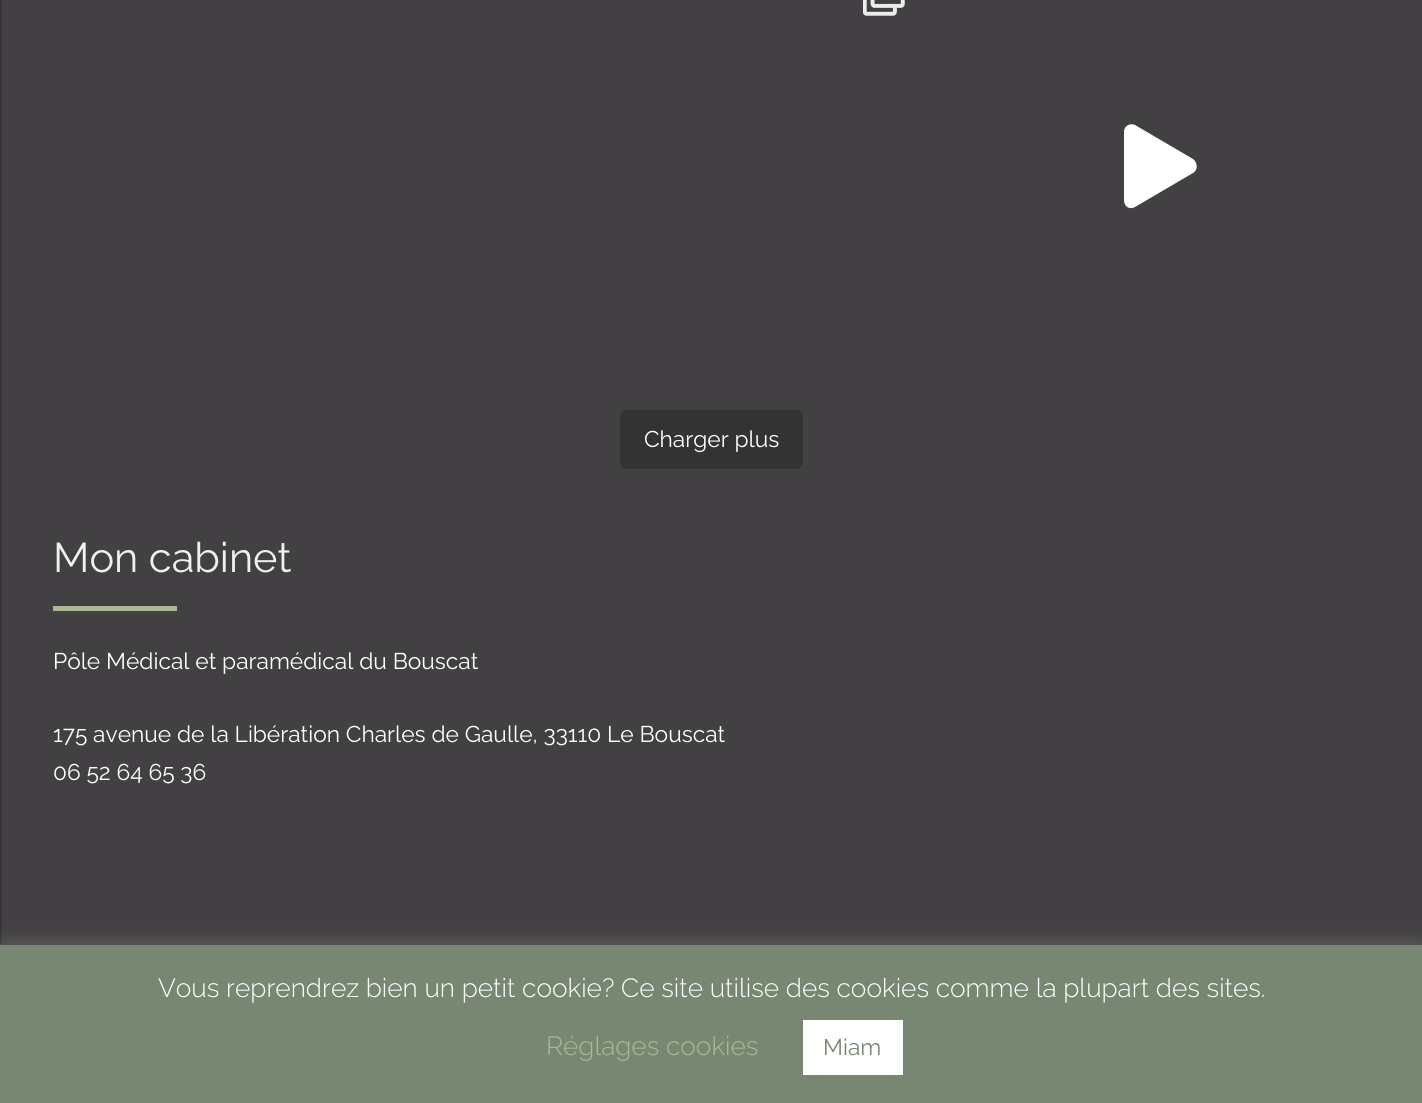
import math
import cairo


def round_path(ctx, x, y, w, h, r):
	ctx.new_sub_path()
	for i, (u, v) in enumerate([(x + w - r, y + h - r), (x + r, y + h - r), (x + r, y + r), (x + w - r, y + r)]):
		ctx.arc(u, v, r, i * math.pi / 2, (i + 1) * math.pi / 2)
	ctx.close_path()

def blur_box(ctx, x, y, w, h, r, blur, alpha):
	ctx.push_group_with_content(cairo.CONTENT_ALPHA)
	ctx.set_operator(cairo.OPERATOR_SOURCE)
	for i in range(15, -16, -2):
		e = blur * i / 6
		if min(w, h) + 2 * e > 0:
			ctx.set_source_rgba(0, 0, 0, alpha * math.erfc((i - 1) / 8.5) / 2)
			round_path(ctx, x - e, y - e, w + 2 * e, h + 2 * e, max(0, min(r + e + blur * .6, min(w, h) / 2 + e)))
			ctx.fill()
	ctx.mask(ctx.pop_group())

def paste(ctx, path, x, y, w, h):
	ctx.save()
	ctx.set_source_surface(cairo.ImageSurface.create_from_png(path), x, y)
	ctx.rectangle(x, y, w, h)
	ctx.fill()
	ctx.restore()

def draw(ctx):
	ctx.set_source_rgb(0.259, 0.251, 0.259)
	ctx.paint()
	ctx.set_source_rgb(0.22, 0.212, 0.22)
	ctx.rectangle(0, 0, 2, 945)
	ctx.fill()
	paste(ctx, 'media/1.png', 863, 0, 42, 16)
	ctx.set_source_rgb(1, 1, 1)
	ctx.new_path()
	ctx.move_to(1193, 159)
	ctx.line_to(1135, 125)
	ctx.curve_to(1131, 123, 1124, 125, 1124, 132)
	ctx.line_to(1124, 200)
	ctx.curve_to(1124, 207, 1130, 210, 1135, 207)
	ctx.line_to(1193, 173)
	ctx.curve_to(1198, 170, 1198, 163, 1193, 159)
	ctx.close_path()
	ctx.fill()
	ctx.set_source_rgb(0.2, 0.2, 0.2)
	round_path(ctx, 620, 410, 183, 59, 7)
	ctx.fill()
	ctx.select_font_face('Raleway')
	ctx.set_font_size(22.75)
	ctx.set_source_rgb(1, 1, 1)
	ctx.move_to(644, 447)
	ctx.show_text('Charger plus')
	ctx.set_font_size(41.5)
	ctx.set_source_rgb(0.941, 0.941, 0.941)
	ctx.move_to(53, 572)
	ctx.show_text('Mon cabinet')
	ctx.set_source_rgb(0.671, 0.725, 0.592)
	ctx.rectangle(53, 606, 124, 5)
	ctx.fill()
	ctx.set_font_size(22.75)
	ctx.set_source_rgb(1, 1, 1)
	for x, y, s in [
		(53, 669, 'Pôle Médical et paramédical du Bouscat'),
		(53, 742, '175 avenue de la Libération Charles de Gaulle, 33110 Le Bouscat'),
		(53, 780, '06 52 64 65 36'),
	]:
		ctx.move_to(x, y)
		ctx.show_text(s)
	ctx.set_source_rgb(0.675, 0.671, 0.671)
	blur_box(ctx, 0, 943, 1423, 160, 0, 9, 0.3)
	ctx.set_source_rgb(0.471, 0.529, 0.447)
	ctx.rectangle(0, 945, 1422, 158)
	ctx.fill()
	ctx.select_font_face('Raleway Light')
	ctx.set_font_size(26.25)
	ctx.set_source_rgb(1, 1, 1)
	ctx.move_to(158, 997)
	ctx.show_text('Vous reprendrez bien un petit cookie? Ce site utilise des cookies comme la plupart des sites.')
	ctx.set_source_rgb(0.671, 0.725, 0.592)
	ctx.move_to(546, 1055)
	ctx.show_text('Réglages cookies')
	ctx.set_source_rgb(1, 1, 1)
	ctx.rectangle(803, 1020, 100, 55)
	ctx.fill()
	ctx.select_font_face('Raleway')
	ctx.set_font_size(22.75)
	ctx.set_source_rgb(0.471, 0.529, 0.447)
	ctx.move_to(823, 1055)
	ctx.show_text('Miam')


surface = cairo.ImageSurface(cairo.FORMAT_RGB24, 1422, 1103)
ctx = cairo.Context(surface)
options = cairo.FontOptions()
options.set_hint_metrics(cairo.HINT_METRICS_OFF)
options.set_hint_style(cairo.HINT_STYLE_NONE)
ctx.set_font_options(options)
ctx.set_miter_limit(4)
draw(ctx)
surface.write_to_png('image.png')
